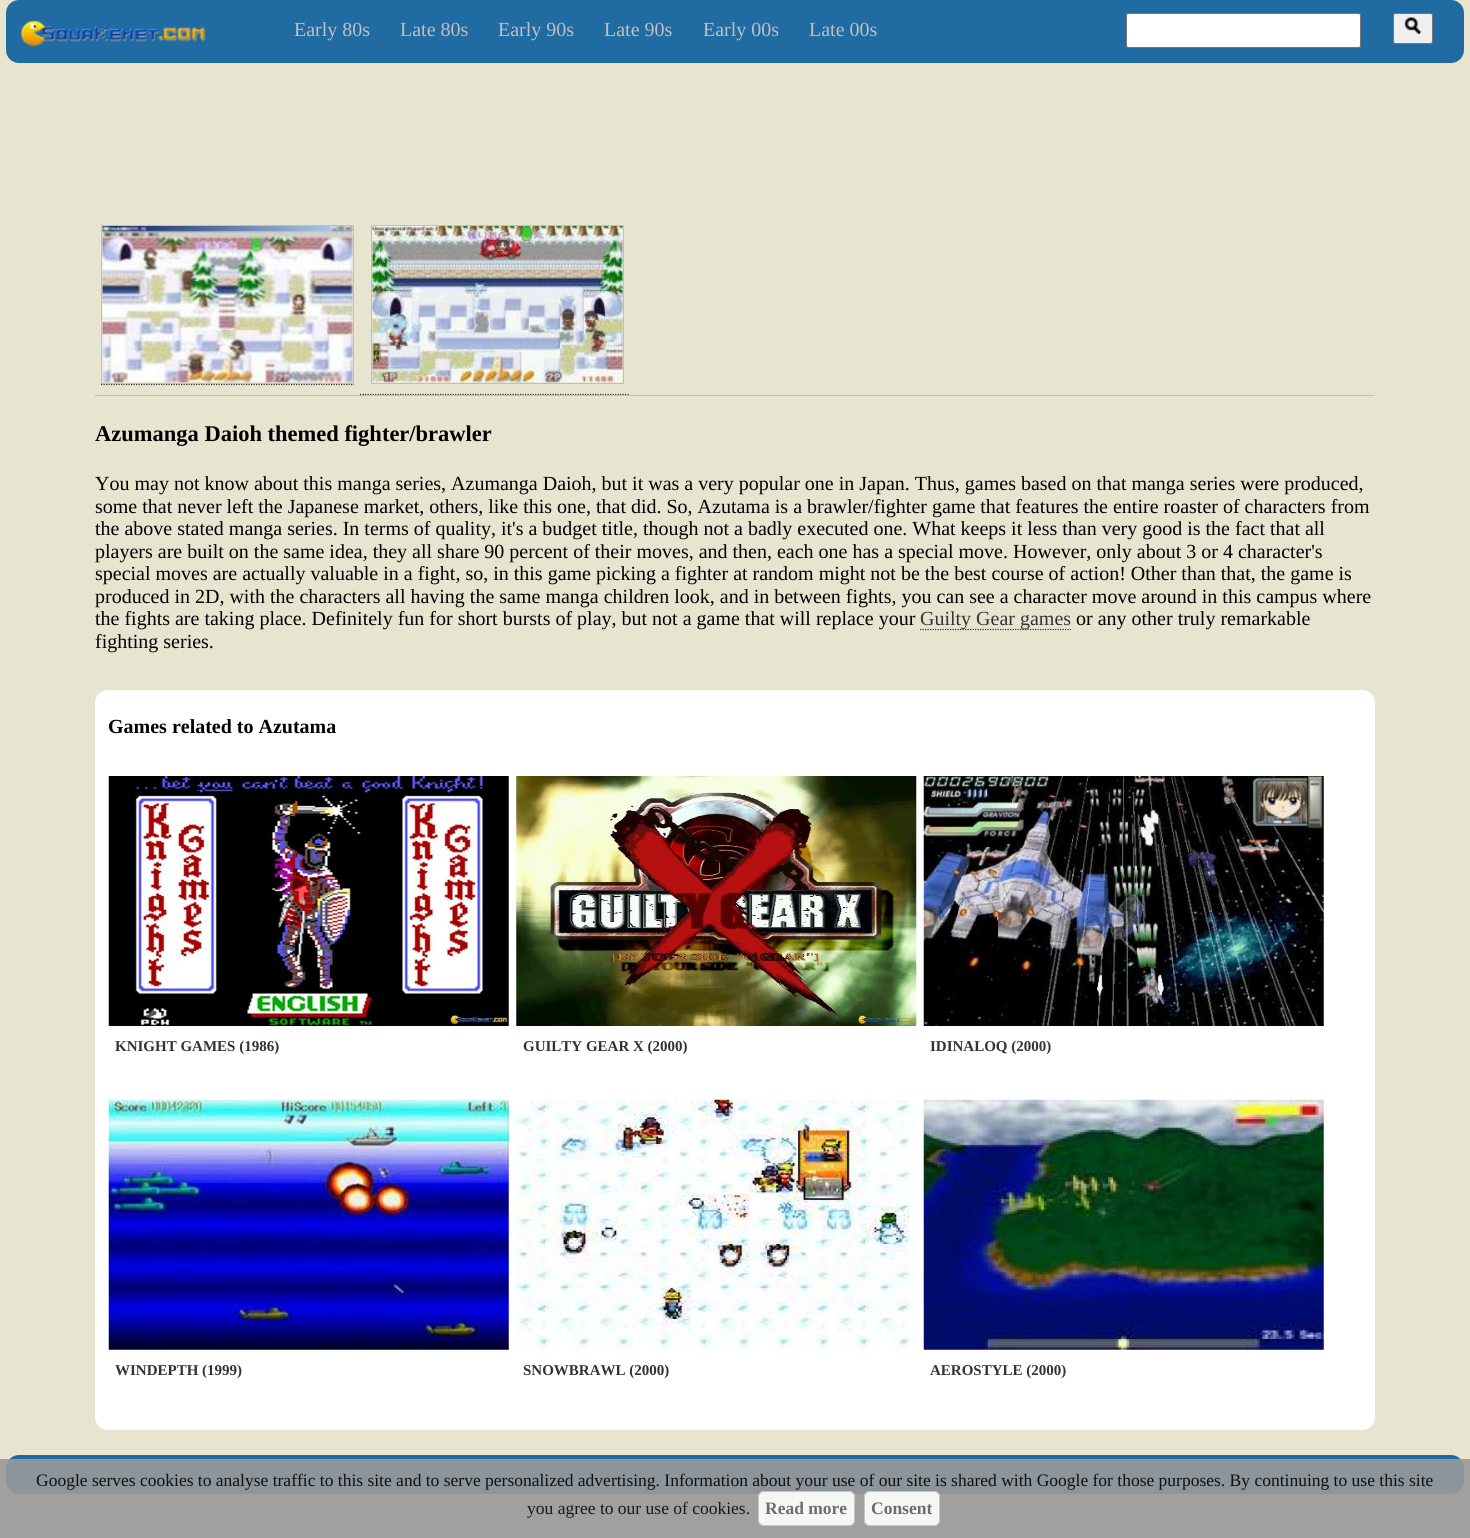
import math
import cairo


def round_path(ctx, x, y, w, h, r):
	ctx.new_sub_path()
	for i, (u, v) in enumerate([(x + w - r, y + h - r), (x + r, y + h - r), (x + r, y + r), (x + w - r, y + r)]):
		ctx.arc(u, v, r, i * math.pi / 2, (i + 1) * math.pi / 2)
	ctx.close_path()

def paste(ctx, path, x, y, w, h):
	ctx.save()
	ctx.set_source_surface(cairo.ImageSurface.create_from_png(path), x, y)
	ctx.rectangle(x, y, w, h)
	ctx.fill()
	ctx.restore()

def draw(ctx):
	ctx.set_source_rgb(0.906, 0.894, 0.816)
	ctx.paint()
	ctx.set_source_rgb(0.125, 0.42, 0.635)
	round_path(ctx, 6, 0, 1458, 63, 13)
	ctx.fill()
	paste(ctx, 'media/1.png', 20, 20, 186, 27)
	ctx.select_font_face('Liberation Serif')
	ctx.set_font_size(20)
	ctx.set_source_rgb(0.753, 0.753, 0.753)
	for x, y, s in [
		(294, 36, 'Early 80s'),
		(400, 36, 'Late 80s'),
		(498, 36, 'Early 90s'),
		(604, 36, 'Late 90s'),
		(703, 36, 'Early 00s'),
		(809, 36, 'Late 00s'),
	]:
		ctx.move_to(x, y)
		ctx.show_text(s)
	ctx.set_source_rgb(1, 1, 1)
	round_path(ctx, 1126.5, 13.5, 234, 34, 2)
	ctx.fill_preserve()
	ctx.set_source_rgb(0.463, 0.463, 0.463)
	ctx.set_line_width(1)
	ctx.stroke()
	ctx.set_source_rgb(0.937, 0.937, 0.937)
	round_path(ctx, 1393.5, 13.5, 39, 30, 2)
	ctx.fill_preserve()
	ctx.set_source_rgb(0.463, 0.463, 0.463)
	ctx.stroke()
	paste(ctx, 'media/2.png', 1404, 17, 18, 17)
	ctx.set_source_rgb(0.753, 0.753, 0.753)
	ctx.rectangle(95, 395, 1280, 1)
	ctx.fill()
	ctx.new_path()
	ctx.move_to(101, 384.5)
	ctx.line_to(354, 384.5)
	ctx.set_source_rgb(0.2, 0.2, 0.2)
	ctx.set_line_width(1.2)
	ctx.set_dash([1.25, 1.25])
	ctx.stroke()
	ctx.rectangle(101.5, 225.5, 252, 158)
	ctx.set_source_rgb(0.753, 0.753, 0.753)
	ctx.set_line_width(1)
	ctx.set_dash([])
	ctx.stroke()
	ctx.rectangle(371.5, 225.5, 252, 158)
	ctx.stroke()
	paste(ctx, 'media/3.png', 102, 226, 251, 157)
	paste(ctx, 'media/4.png', 372, 226, 251, 157)
	ctx.new_path()
	ctx.move_to(360, 394.5)
	ctx.line_to(361, 394.5)
	ctx.move_to(362.5, 394.5)
	ctx.line_to(364, 394.5)
	ctx.set_source_rgb(0.2, 0.2, 0.2)
	ctx.set_line_width(1.2)
	ctx.stroke()
	ctx.save()
	ctx.rectangle(95, 219, 1280, 176)
	ctx.clip()
	ctx.new_path()
	ctx.move_to(365, 394.5)
	ctx.line_to(630, 394.5)
	ctx.set_dash([1.25, 1.25])
	ctx.stroke()
	ctx.restore()
	ctx.select_font_face('Liberation Serif', cairo.FONT_SLANT_NORMAL, cairo.FONT_WEIGHT_BOLD)
	ctx.set_font_size(22.5)
	ctx.set_source_rgb(0, 0, 0)
	ctx.move_to(95, 441)
	ctx.show_text('Azumanga Daioh themed fighter/brawler')
	ctx.select_font_face('Liberation Serif')
	ctx.set_font_size(20)
	for x, y, s in [
		(95, 490, 'You may not know about this manga series, Azumanga Daioh, but it was a very popular one in Japan. Thus, games based on that manga series were produced,'),
		(95, 513, 'some that never left the Japanese market, others, like this one, that did. So, Azutama is a brawler/fighter game that features the entire roaster of characters from'),
		(95, 535, 'the above stated manga series. In terms of quality, it\'s a budget title, though not a badly executed one. What keeps it less than very good is the fact that all'),
		(95, 558, 'players are built on the same idea, they all share 90 percent of their moves, and then, each one has a special move. However, only about 3 or 4 character\'s'),
		(95, 580, 'special moves are actually valuable in a fight, so, in this game picking a fighter at random might not be the best course of action! Other than that, the game is'),
		(95, 603, 'produced in 2D, with the characters all having the same manga children look, and in between fights, you can see a character move around in this campus where'),
		(95, 625, 'the fights are taking place. Definitely fun for short bursts of play, but not a game that will replace your'),
	]:
		ctx.move_to(x, y)
		ctx.show_text(s)
	ctx.new_path()
	ctx.move_to(920, 629.5)
	ctx.line_to(1071, 629.5)
	ctx.set_source_rgb(0.2, 0.2, 0.2)
	ctx.set_dash([1.25, 1.25])
	ctx.stroke()
	ctx.move_to(920, 625)
	ctx.show_text('Guilty Gear games')
	ctx.set_source_rgb(0, 0, 0)
	ctx.move_to(1076, 625)
	ctx.show_text('or any other truly remarkable')
	ctx.move_to(95, 648)
	ctx.show_text('fighting series.')
	ctx.set_source_rgb(1, 1, 1)
	round_path(ctx, 95, 690, 1280, 740, 13)
	ctx.fill()
	ctx.select_font_face('Liberation Serif', cairo.FONT_SLANT_NORMAL, cairo.FONT_WEIGHT_BOLD)
	ctx.set_source_rgb(0, 0, 0)
	ctx.move_to(108, 733)
	ctx.show_text('Games related to Azutama')
	paste(ctx, 'media/5.png', 108, 776, 401, 250)
	ctx.set_font_size(15)
	ctx.set_source_rgb(0.2, 0.2, 0.2)
	ctx.move_to(115, 1051)
	ctx.show_text('KNIGHT GAMES (1986)')
	paste(ctx, 'media/6.png', 516, 776, 401, 250)
	ctx.move_to(523, 1051)
	ctx.show_text('GUILTY GEAR X (2000)')
	paste(ctx, 'media/7.png', 923, 776, 401, 250)
	ctx.move_to(930, 1051)
	ctx.show_text('IDINALOQ (2000)')
	paste(ctx, 'media/8.png', 108, 1099, 401, 251)
	ctx.move_to(115, 1375)
	ctx.show_text('WINDEPTH (1999)')
	paste(ctx, 'media/9.png', 516, 1099, 400, 251)
	ctx.move_to(523, 1375)
	ctx.show_text('SNOWBRAWL (2000)')
	paste(ctx, 'media/10.png', 923, 1099, 401, 251)
	ctx.move_to(930, 1375)
	ctx.show_text('AEROSTYLE (2000)')
	ctx.set_source_rgb(0.125, 0.42, 0.635)
	round_path(ctx, 6, 1455, 1458, 39, 13)
	ctx.fill()
	ctx.set_source_rgba(0.6, 0.6, 0.6, 0.9)
	ctx.rectangle(0, 1459, 1470, 79)
	ctx.fill()
	ctx.select_font_face('Liberation Serif')
	ctx.set_font_size(17.5)
	ctx.set_source_rgb(0.055, 0.059, 0.059)
	ctx.move_to(36, 1486)
	ctx.show_text('Google serves cookies to analyse traffic to this site and to serve personalized advertising. Information about your use of our site is shared with Google for those purposes. By continuing to use this site')
	ctx.set_source_rgb(0.09, 0.09, 0.082)
	ctx.move_to(527, 1514)
	ctx.show_text('you agree to our use of cookies.')
	ctx.set_source_rgba(1, 1, 1, 0.9)
	round_path(ctx, 758, 1491, 97, 35, 6)
	ctx.fill()
	round_path(ctx, 758.5, 1491.5, 96, 34, 5.5)
	ctx.set_source_rgba(0.753, 0.753, 0.753, 0.9)
	ctx.set_line_width(1)
	ctx.set_dash([])
	ctx.stroke()
	ctx.select_font_face('Liberation Serif', cairo.FONT_SLANT_NORMAL, cairo.FONT_WEIGHT_BOLD)
	ctx.set_source_rgb(0.431, 0.427, 0.42)
	ctx.move_to(765, 1514)
	ctx.show_text('Read more')
	ctx.set_source_rgba(1, 1, 1, 0.9)
	round_path(ctx, 864, 1491, 76, 35, 6)
	ctx.fill()
	round_path(ctx, 864.5, 1491.5, 75, 34, 5.5)
	ctx.set_source_rgba(0.753, 0.753, 0.753, 0.9)
	ctx.stroke()
	ctx.set_source_rgb(0.431, 0.427, 0.42)
	ctx.move_to(871, 1514)
	ctx.show_text('Consent')


surface = cairo.ImageSurface(cairo.FORMAT_RGB24, 1470, 1538)
ctx = cairo.Context(surface)
options = cairo.FontOptions()
options.set_hint_metrics(cairo.HINT_METRICS_OFF)
options.set_hint_style(cairo.HINT_STYLE_NONE)
ctx.set_font_options(options)
ctx.set_miter_limit(4)
draw(ctx)
surface.write_to_png('image.png')
